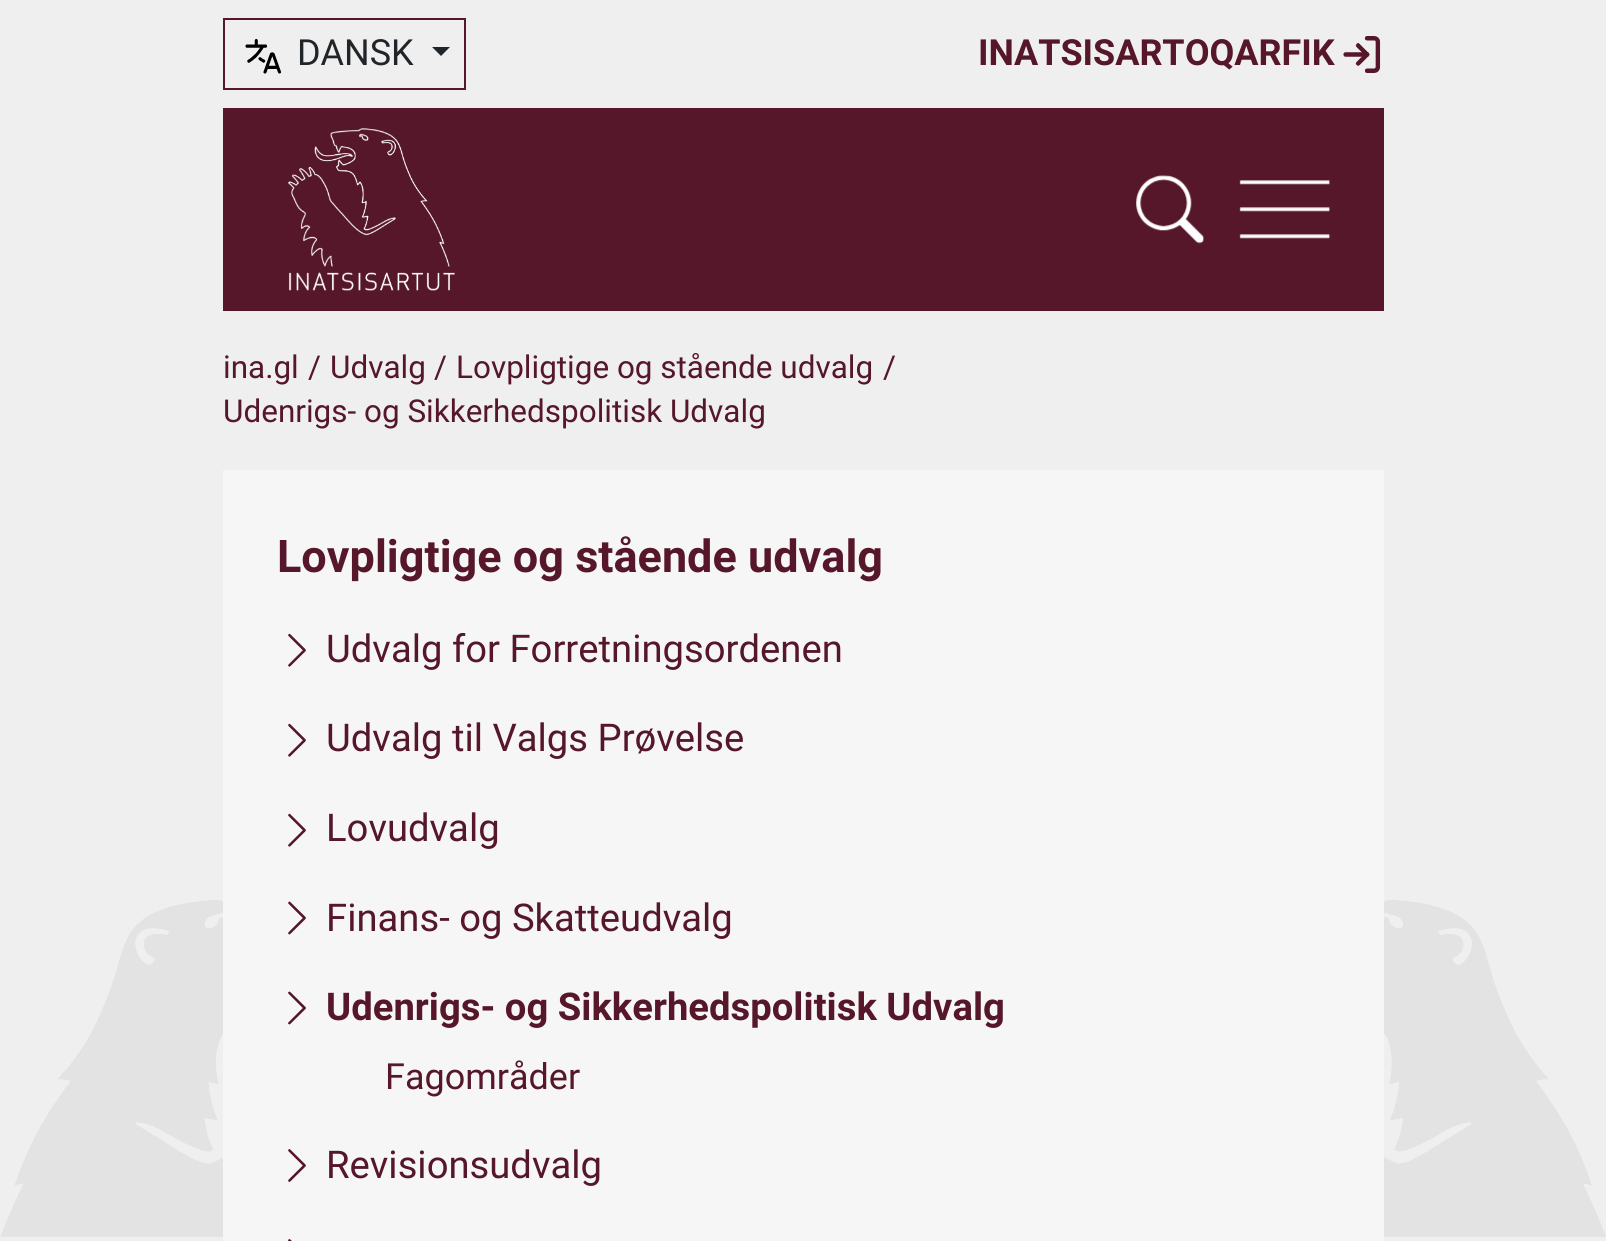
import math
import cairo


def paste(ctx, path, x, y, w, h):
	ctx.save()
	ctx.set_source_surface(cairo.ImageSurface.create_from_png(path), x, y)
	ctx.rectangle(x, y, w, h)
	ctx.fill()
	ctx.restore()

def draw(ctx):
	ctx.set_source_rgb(0.937, 0.937, 0.937)
	ctx.paint()
	paste(ctx, 'media/1.png', 0, 900, 1606, 338)
	ctx.rectangle(224, 19, 241, 70)
	ctx.set_source_rgb(0.333, 0.09, 0.161)
	ctx.stroke()
	paste(ctx, 'media/2.png', 245, 39, 36, 35)
	ctx.select_font_face('Roboto')
	ctx.set_font_size(36)
	ctx.set_source_rgb(0.129, 0.145, 0.161)
	ctx.move_to(297, 65)
	ctx.show_text('DANSK')
	ctx.new_path()
	ctx.move_to(432, 47)
	ctx.line_to(450, 47)
	ctx.line_to(441, 56)
	ctx.close_path()
	ctx.fill()
	ctx.select_font_face('Roboto', cairo.FONT_SLANT_NORMAL, cairo.FONT_WEIGHT_BOLD)
	ctx.set_source_rgb(0.333, 0.09, 0.161)
	ctx.move_to(978, 65)
	ctx.show_text('INATSISARTOQARFIK')
	paste(ctx, 'media/3.png', 1343, 36, 38, 37)
	ctx.rectangle(223, 108, 1161, 203)
	ctx.fill()
	paste(ctx, 'media/4.png', 288, 128, 167, 163)
	paste(ctx, 'media/5.png', 1136, 175, 69, 69)
	paste(ctx, 'media/6.png', 1239, 180, 92, 59)
	ctx.select_font_face('Roboto')
	ctx.set_font_size(31.5)
	for x, y, s in [
		(223, 378, 'ina.gl'),
		(308, 378, '/'),
		(330, 378, 'Udvalg'),
		(434, 378, '/'),
		(456, 378, 'Lovpligtige og stående udvalg'),
		(883, 378, '/'),
		(223, 422, 'Udenrigs- og Sikkerhedspolitisk Udvalg'),
	]:
		ctx.move_to(x, y)
		ctx.show_text(s)
	ctx.set_source_rgb(0.961, 0.961, 0.961)
	ctx.rectangle(223, 470, 1161, 771)
	ctx.fill()
	ctx.select_font_face('Roboto', cairo.FONT_SLANT_NORMAL, cairo.FONT_WEIGHT_BOLD)
	ctx.set_font_size(45)
	ctx.set_source_rgb(0.333, 0.09, 0.161)
	ctx.move_to(277, 572)
	ctx.show_text('Lovpligtige og stående udvalg')
	paste(ctx, 'media/7.png', 288, 633, 18, 34)
	ctx.select_font_face('Roboto')
	ctx.set_font_size(38.25)
	ctx.move_to(326, 662)
	ctx.show_text('Udvalg for Forretningsordenen')
	paste(ctx, 'media/7.png', 288, 723, 18, 34)
	ctx.move_to(326, 751)
	ctx.show_text('Udvalg til Valgs Prøvelse')
	paste(ctx, 'media/7.png', 288, 813, 18, 34)
	ctx.move_to(326, 841)
	ctx.show_text('Lovudvalg')
	paste(ctx, 'media/8.png', 288, 901, 18, 34)
	ctx.move_to(326, 931)
	ctx.show_text('Finans- og Skatteudvalg')
	paste(ctx, 'media/9.png', 288, 991, 18, 34)
	ctx.select_font_face('Roboto', cairo.FONT_SLANT_NORMAL, cairo.FONT_WEIGHT_BOLD)
	ctx.move_to(326, 1020)
	ctx.show_text('Udenrigs- og Sikkerhedspolitisk Udvalg')
	ctx.select_font_face('Roboto')
	ctx.set_font_size(36)
	ctx.move_to(385, 1089)
	ctx.show_text('Fagområder')
	paste(ctx, 'media/10.png', 288, 1149, 18, 33)
	ctx.set_font_size(38.25)
	ctx.move_to(326, 1178)
	ctx.show_text('Revisionsudvalg')
	paste(ctx, 'media/11.png', 288, 1239, 4, 2)


surface = cairo.ImageSurface(cairo.FORMAT_RGB24, 1606, 1241)
ctx = cairo.Context(surface)
options = cairo.FontOptions()
options.set_hint_metrics(cairo.HINT_METRICS_OFF)
options.set_hint_style(cairo.HINT_STYLE_NONE)
ctx.set_font_options(options)
ctx.set_miter_limit(4)
draw(ctx)
surface.write_to_png('image.png')
